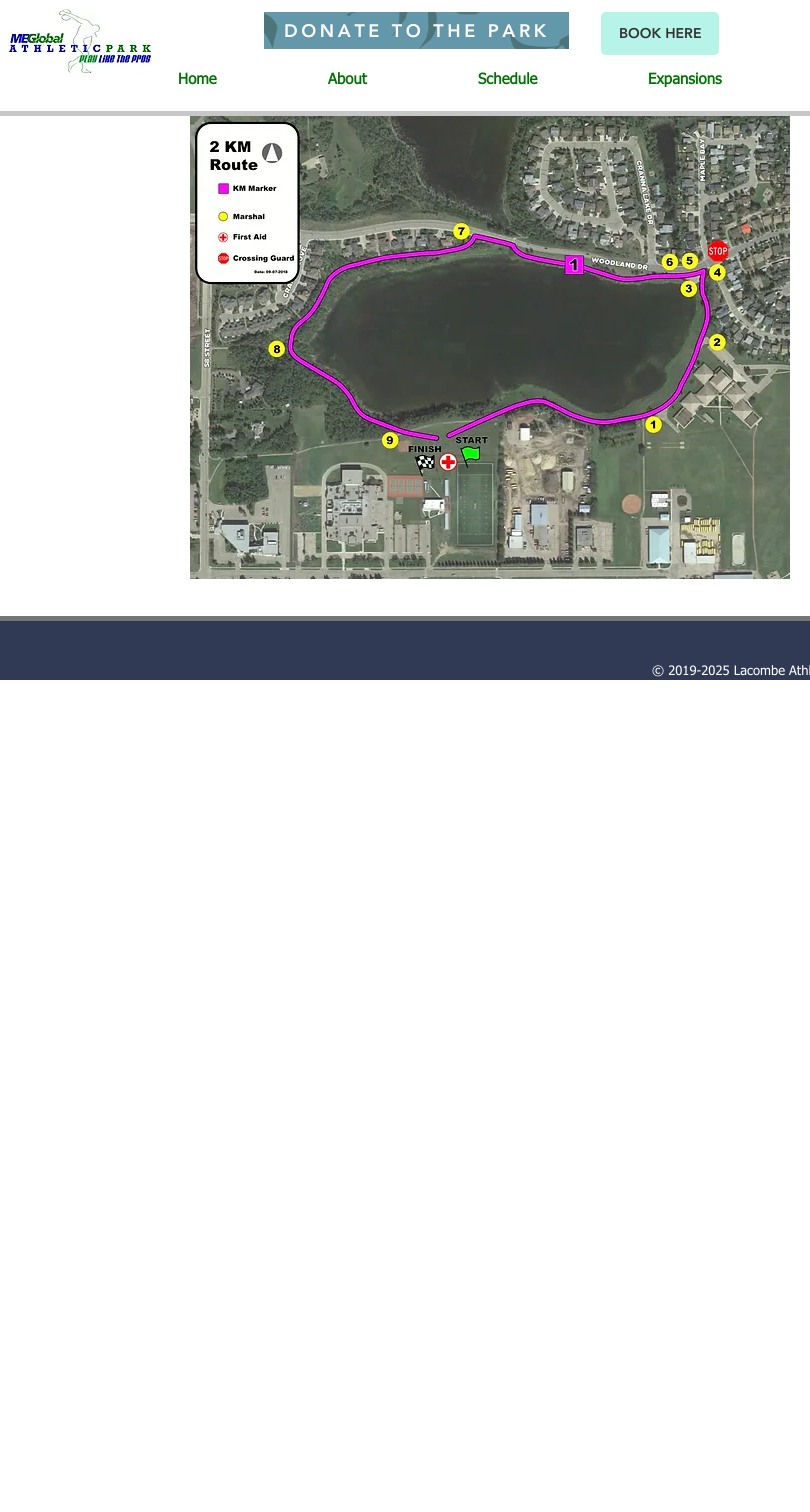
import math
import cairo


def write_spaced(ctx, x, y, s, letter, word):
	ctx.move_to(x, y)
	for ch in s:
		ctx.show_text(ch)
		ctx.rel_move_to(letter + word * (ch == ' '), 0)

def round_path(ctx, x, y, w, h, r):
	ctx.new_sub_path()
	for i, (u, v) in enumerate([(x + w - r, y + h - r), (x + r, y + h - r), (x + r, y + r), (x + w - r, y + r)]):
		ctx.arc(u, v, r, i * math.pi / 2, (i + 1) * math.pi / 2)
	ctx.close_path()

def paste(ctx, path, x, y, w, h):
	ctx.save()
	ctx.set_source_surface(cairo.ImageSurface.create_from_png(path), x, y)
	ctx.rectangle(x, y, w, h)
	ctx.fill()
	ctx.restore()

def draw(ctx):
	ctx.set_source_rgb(1, 1, 1)
	ctx.paint()
	paste(ctx, 'media/1.png', 8, 8, 144, 68)
	ctx.set_source_rgb(0.384, 0.596, 0.667)
	ctx.rectangle(264, 12, 305, 37)
	ctx.fill()
	paste(ctx, 'media/2.png', 264, 12, 305, 37)
	ctx.select_font_face('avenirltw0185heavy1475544 Black')
	ctx.set_font_size(18)
	ctx.set_source_rgb(1, 1, 1)
	write_spaced(ctx, 284, 37, 'DONATE TO THE PARK', 3.6, 0)
	ctx.set_source_rgb(0.714, 0.953, 0.91)
	round_path(ctx, 601, 12, 118, 43, 5)
	ctx.fill()
	ctx.set_font_size(14)
	ctx.set_source_rgb(0.196, 0.196, 0.196)
	ctx.move_to(619, 38)
	ctx.show_text('BOOK HERE')
	ctx.select_font_face('tahoma', cairo.FONT_SLANT_NORMAL, cairo.FONT_WEIGHT_BOLD)
	ctx.set_font_size(15)
	ctx.set_source_rgb(0.008, 0.455, 0.02)
	for x, y, s in [
		(178, 84, 'Home'),
		(328, 84, 'About'),
		(478, 84, 'Schedule'),
		(648, 84, 'Expansions'),
	]:
		ctx.move_to(x, y)
		ctx.show_text(s)
	ctx.set_source_rgb(0.78, 0.78, 0.78)
	ctx.rectangle(0, 111, 810, 5)
	ctx.fill()
	paste(ctx, 'media/3.png', 190, 116, 600, 463)
	ctx.set_source_rgb(0.192, 0.227, 0.329)
	ctx.rectangle(0, 621, 810, 59)
	ctx.fill()
	ctx.set_source_rgb(0.459, 0.459, 0.459)
	ctx.rectangle(0, 616, 810, 5)
	ctx.fill()
	ctx.select_font_face('tahoma')
	ctx.set_font_size(13)
	ctx.set_source_rgb(1, 1, 1)
	ctx.move_to(652, 675)
	ctx.show_text('© 2019-2025 Lacombe Athl')


surface = cairo.ImageSurface(cairo.FORMAT_RGB24, 810, 1512)
ctx = cairo.Context(surface)
options = cairo.FontOptions()
options.set_hint_metrics(cairo.HINT_METRICS_OFF)
options.set_hint_style(cairo.HINT_STYLE_NONE)
ctx.set_font_options(options)
ctx.set_miter_limit(4)
draw(ctx)
surface.write_to_png('image.png')
